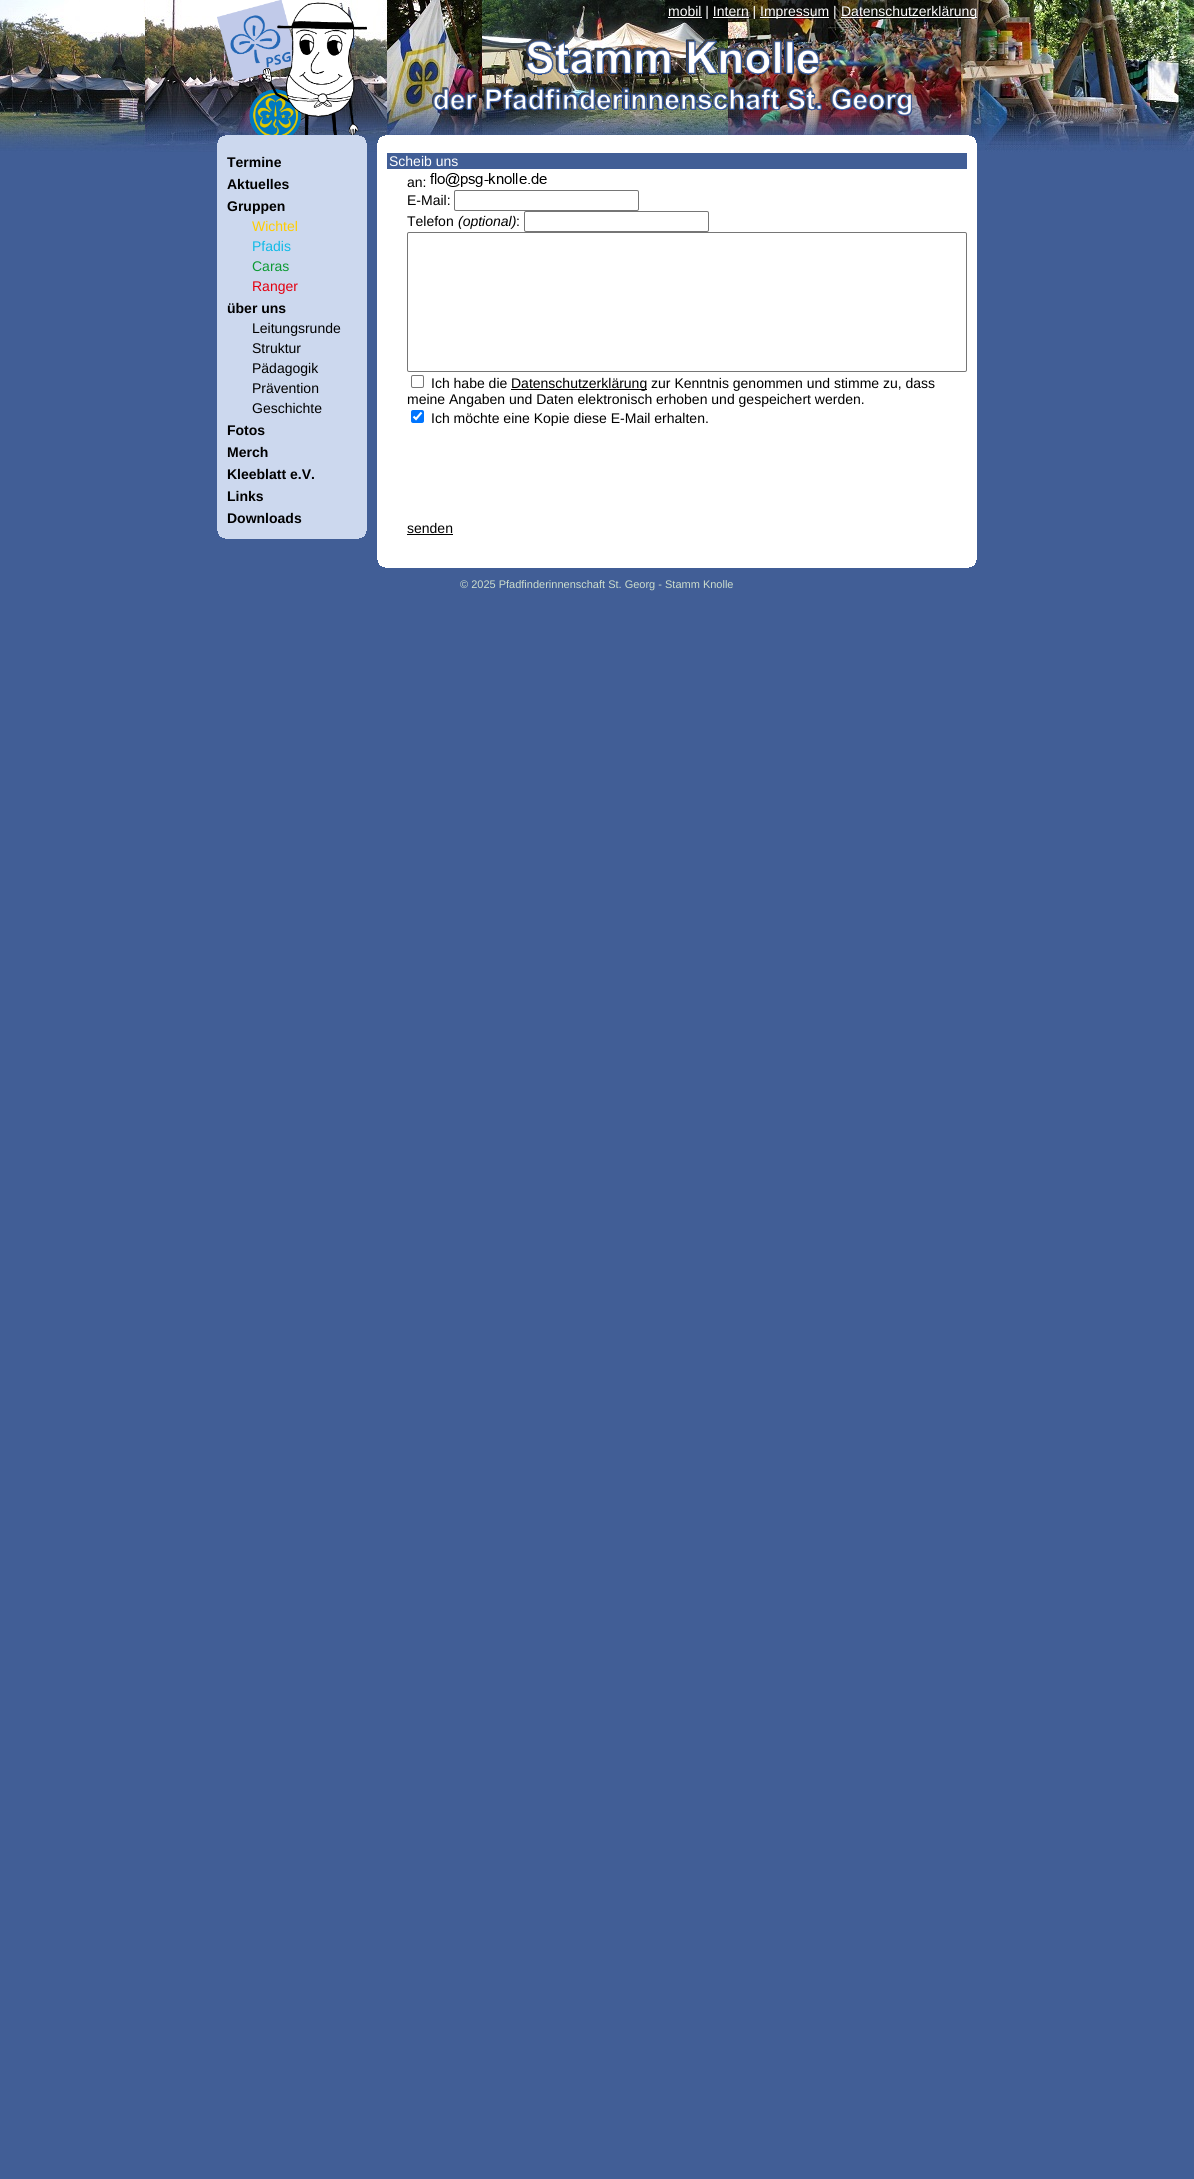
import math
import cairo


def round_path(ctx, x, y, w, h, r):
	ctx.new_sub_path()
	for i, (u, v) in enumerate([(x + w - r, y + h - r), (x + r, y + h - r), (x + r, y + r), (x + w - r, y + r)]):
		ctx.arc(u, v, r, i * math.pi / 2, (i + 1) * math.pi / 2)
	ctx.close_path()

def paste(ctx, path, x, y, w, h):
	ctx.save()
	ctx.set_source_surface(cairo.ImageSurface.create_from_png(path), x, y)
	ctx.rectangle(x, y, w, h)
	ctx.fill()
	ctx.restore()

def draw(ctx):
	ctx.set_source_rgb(0.255, 0.369, 0.588)
	ctx.paint()
	paste(ctx, 'media/1.png', 0, 0, 1194, 152)
	paste(ctx, 'media/2.png', 217, 0, 150, 135)
	ctx.set_source_rgba(0, 0, 0, 0.51)
	ctx.rectangle(665, 0, 312, 19)
	ctx.fill()
	ctx.set_source_rgb(1, 1, 1)
	ctx.rectangle(668, 17, 34, 1)
	ctx.fill()
	ctx.select_font_face('Liberation Sans')
	ctx.set_font_size(14)
	ctx.move_to(668, 16)
	ctx.show_text('mobil | Intern |')
	ctx.rectangle(760, 17, 69, 1)
	ctx.fill()
	ctx.move_to(760, 16)
	ctx.show_text('Impressum |')
	ctx.rectangle(841, 17, 136, 1)
	ctx.fill()
	ctx.move_to(841, 16)
	ctx.show_text('Datenschutzerklärung')
	ctx.rectangle(713, 17, 36, 1)
	ctx.fill()
	paste(ctx, 'media/3.png', 432, 39, 480, 77)
	paste(ctx, 'media/4.png', 218, 135, 148, 8)
	ctx.set_source_rgb(0.8, 0.847, 0.933)
	ctx.rectangle(217, 143, 150, 388)
	ctx.fill()
	ctx.select_font_face('Liberation Sans', cairo.FONT_SLANT_NORMAL, cairo.FONT_WEIGHT_BOLD)
	ctx.set_source_rgb(0, 0, 0)
	for x, y, s in [
		(227, 167, 'Termine'),
		(227, 189, 'Aktuelles'),
		(227, 211, 'Gruppen'),
	]:
		ctx.move_to(x, y)
		ctx.show_text(s)
	ctx.select_font_face('Liberation Sans')
	ctx.set_source_rgb(1, 0.8, 0)
	ctx.move_to(252, 231)
	ctx.show_text('Wichtel')
	ctx.set_source_rgb(0.063, 0.729, 0.906)
	ctx.move_to(252, 251)
	ctx.show_text('Pfadis')
	ctx.set_source_rgb(0.043, 0.604, 0.2)
	ctx.move_to(252, 271)
	ctx.show_text('Caras')
	ctx.set_source_rgb(0.89, 0, 0.059)
	ctx.move_to(252, 291)
	ctx.show_text('Ranger')
	ctx.select_font_face('Liberation Sans', cairo.FONT_SLANT_NORMAL, cairo.FONT_WEIGHT_BOLD)
	ctx.set_source_rgb(0, 0, 0)
	ctx.move_to(227, 313)
	ctx.show_text('über uns')
	ctx.select_font_face('Liberation Sans')
	for x, y, s in [
		(252, 333, 'Leitungsrunde'),
		(252, 353, 'Struktur'),
		(252, 373, 'Pädagogik'),
		(252, 393, 'Prävention'),
		(252, 413, 'Geschichte'),
	]:
		ctx.move_to(x, y)
		ctx.show_text(s)
	ctx.select_font_face('Liberation Sans', cairo.FONT_SLANT_NORMAL, cairo.FONT_WEIGHT_BOLD)
	for x, y, s in [
		(227, 435, 'Fotos'),
		(227, 457, 'Merch'),
		(227, 479, 'Kleeblatt e.V.'),
		(227, 501, 'Links'),
		(227, 523, 'Downloads'),
	]:
		ctx.move_to(x, y)
		ctx.show_text(s)
	paste(ctx, 'media/5.png', 218, 531, 148, 8)
	paste(ctx, 'media/6.png', 378, 135, 598, 8)
	ctx.set_source_rgb(1, 1, 1)
	ctx.rectangle(377, 143, 600, 417)
	ctx.fill()
	ctx.set_source_rgb(0.255, 0.369, 0.588)
	ctx.rectangle(387, 153, 580, 16)
	ctx.fill()
	ctx.select_font_face('Liberation Sans')
	ctx.set_source_rgb(1, 1, 1)
	ctx.move_to(389, 166)
	ctx.show_text('Scheib uns')
	ctx.set_source_rgb(0, 0, 0)
	ctx.move_to(407, 187)
	ctx.show_text('an:')
	paste(ctx, 'media/7.png', 430, 173, 117, 14)
	ctx.move_to(407, 205)
	ctx.show_text('E-Mail:')
	round_path(ctx, 454.5, 190.5, 184, 20, 1.5)
	ctx.set_source_rgb(0.463, 0.463, 0.463)
	ctx.set_line_width(1)
	ctx.stroke()
	ctx.set_source_rgb(0, 0, 0)
	ctx.move_to(407, 226)
	ctx.show_text('Telefon')
	ctx.select_font_face('Liberation Sans', cairo.FONT_SLANT_ITALIC)
	ctx.move_to(458, 226)
	ctx.show_text('(optional)')
	ctx.select_font_face('Liberation Sans')
	ctx.move_to(516, 226)
	ctx.show_text(':')
	round_path(ctx, 524.5, 211.5, 184, 20, 1.5)
	ctx.set_source_rgb(0.463, 0.463, 0.463)
	ctx.stroke()
	round_path(ctx, 407.5, 232.5, 559, 139, 1.5)
	ctx.stroke()
	round_path(ctx, 411.5, 375.5, 12, 12, 1.5)
	ctx.stroke()
	ctx.set_source_rgb(0, 0, 0)
	ctx.move_to(431, 388)
	ctx.show_text('Ich habe die')
	ctx.rectangle(511, 389, 136, 1)
	ctx.fill()
	ctx.move_to(511, 388)
	ctx.show_text('Datenschutzerklärung zur Kenntnis genommen und stimme zu, dass')
	ctx.move_to(407, 404)
	ctx.show_text('meine Angaben und Daten elektronisch erhoben und gespeichert werden.')
	ctx.set_source_rgb(0, 0.459, 1)
	round_path(ctx, 411, 410, 13, 13, 2)
	ctx.fill()
	ctx.new_path()
	ctx.move_to(413.5, 416.5)
	ctx.line_to(416, 419)
	ctx.line_to(421.5, 412.5)
	ctx.set_source_rgb(1, 1, 1)
	ctx.set_line_width(2.1)
	ctx.stroke()
	ctx.set_source_rgb(0, 0, 0)
	ctx.move_to(431, 423)
	ctx.show_text('Ich möchte eine Kopie diese E-Mail erhalten.')
	ctx.move_to(407, 533)
	ctx.show_text('senden')
	ctx.rectangle(407, 534, 46, 1)
	ctx.fill()
	paste(ctx, 'media/8.png', 378, 560, 598, 8)
	ctx.set_font_size(11)
	ctx.set_source_rgb(0.8, 0.867, 0.8)
	ctx.move_to(460, 588)
	ctx.show_text('© 2025 Pfadfinderinnenschaft St. Georg - Stamm Knolle')


surface = cairo.ImageSurface(cairo.FORMAT_RGB24, 1194, 2179)
ctx = cairo.Context(surface)
options = cairo.FontOptions()
options.set_hint_metrics(cairo.HINT_METRICS_OFF)
options.set_hint_style(cairo.HINT_STYLE_NONE)
ctx.set_font_options(options)
ctx.set_miter_limit(4)
draw(ctx)
surface.write_to_png('image.png')
